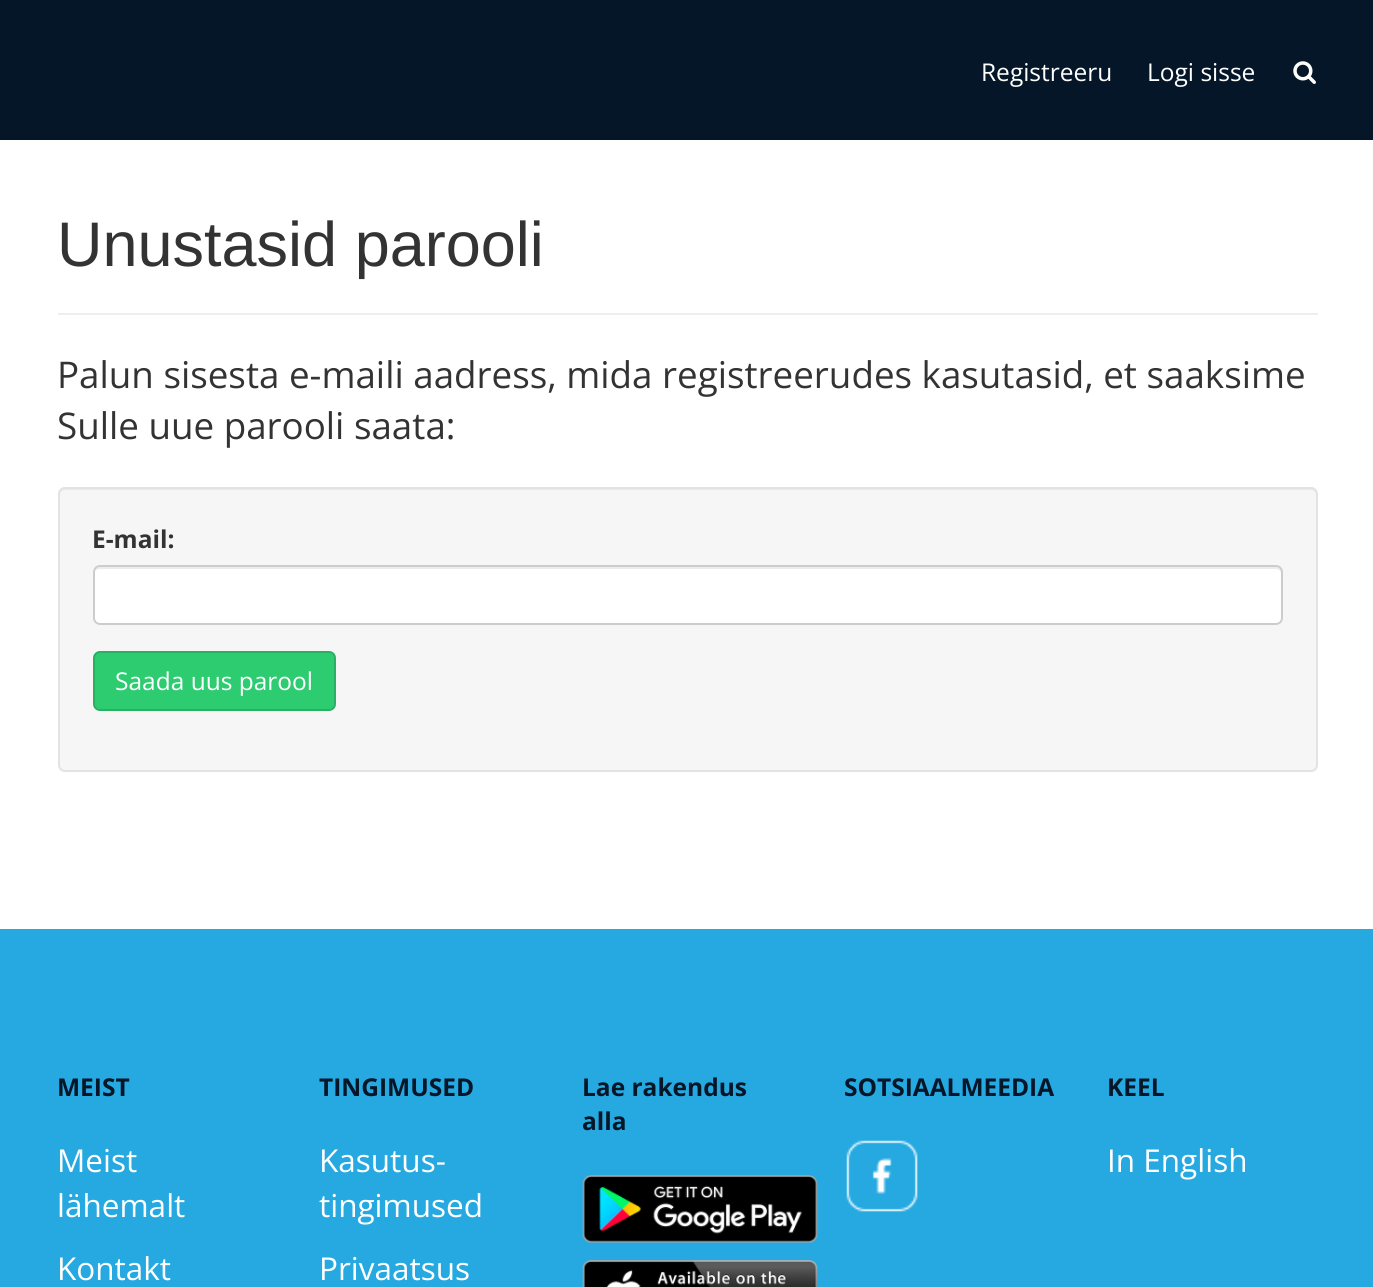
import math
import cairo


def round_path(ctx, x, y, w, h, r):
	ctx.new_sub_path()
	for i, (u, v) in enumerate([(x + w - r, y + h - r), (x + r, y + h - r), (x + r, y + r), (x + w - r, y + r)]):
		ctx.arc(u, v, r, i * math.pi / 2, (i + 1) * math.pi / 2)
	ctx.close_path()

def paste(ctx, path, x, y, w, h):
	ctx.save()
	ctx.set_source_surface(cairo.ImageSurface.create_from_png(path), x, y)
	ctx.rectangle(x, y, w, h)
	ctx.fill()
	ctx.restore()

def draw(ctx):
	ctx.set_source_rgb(1, 1, 1)
	ctx.paint()
	ctx.set_source_rgb(0.016, 0.086, 0.157)
	ctx.rectangle(0, 0, 1373, 140)
	ctx.fill()
	ctx.select_font_face('Open Sans')
	ctx.set_font_size(24.5)
	ctx.set_source_rgb(1, 1, 1)
	ctx.move_to(981, 81)
	ctx.show_text('Registreeru')
	ctx.move_to(1147, 81)
	ctx.show_text('Logi sisse')
	paste(ctx, 'media/1.png', 1293, 61, 23, 23)
	ctx.set_source_rgb(0.933, 0.933, 0.933)
	ctx.rectangle(58, 313, 1260, 2)
	ctx.fill()
	ctx.select_font_face('Liberation Sans')
	ctx.set_font_size(63)
	ctx.set_source_rgb(0.2, 0.2, 0.2)
	ctx.move_to(57, 266)
	ctx.show_text('Unustasid parooli')
	ctx.select_font_face('Open Sans')
	ctx.set_font_size(36.75)
	ctx.move_to(57, 388)
	ctx.show_text('Palun sisesta e-maili aadress, mida registreerudes kasutasid, et saaksime')
	ctx.move_to(57, 439)
	ctx.show_text('Sulle uue parooli saata:')
	ctx.set_source_rgb(0.961, 0.961, 0.961)
	round_path(ctx, 58, 487, 1260, 285, 7)
	ctx.fill()
	ctx.set_source_rgb(0.914, 0.914, 0.914)
	ctx.new_path()
	ctx.move_to(65, 490)
	ctx.line_to(1311, 490)
	ctx.curve_to(1314, 490, 1316, 492, 1316, 495)
	ctx.line_to(1316, 493)
	ctx.curve_to(1316, 490, 1314, 488, 1311, 488)
	ctx.line_to(65, 488)
	ctx.curve_to(62, 488, 60, 490, 60, 493)
	ctx.line_to(60, 495)
	ctx.curve_to(60, 492, 62, 490, 65, 490)
	ctx.close_path()
	ctx.fill()
	round_path(ctx, 59, 488, 1258, 283, 6)
	ctx.set_source_rgb(0.89, 0.89, 0.89)
	ctx.stroke()
	ctx.select_font_face('Open Sans', cairo.FONT_SLANT_NORMAL, cairo.FONT_WEIGHT_BOLD)
	ctx.set_font_size(24.5)
	ctx.set_source_rgb(0.2, 0.2, 0.2)
	ctx.move_to(92, 548)
	ctx.show_text('E-mail:')
	ctx.set_source_rgb(1, 1, 1)
	round_path(ctx, 93, 565, 1190, 60, 7)
	ctx.fill()
	ctx.set_source_rgb(0.925, 0.925, 0.925)
	ctx.new_path()
	ctx.move_to(100, 569)
	ctx.line_to(1276, 569)
	ctx.curve_to(1279, 569, 1281, 571, 1281, 574)
	ctx.line_to(1281, 572)
	ctx.curve_to(1281, 569, 1279, 567, 1276, 567)
	ctx.line_to(100, 567)
	ctx.curve_to(98, 567, 95, 569, 95, 571)
	ctx.curve_to(96, 570, 98, 569, 100, 569)
	ctx.close_path()
	ctx.fill()
	round_path(ctx, 94, 566, 1188, 58, 6)
	ctx.set_source_rgb(0.8, 0.8, 0.8)
	ctx.stroke()
	ctx.set_source_rgb(0.18, 0.8, 0.443)
	round_path(ctx, 94, 652, 241, 58, 6)
	ctx.fill_preserve()
	ctx.set_source_rgb(0.161, 0.69, 0.384)
	ctx.stroke()
	ctx.select_font_face('Open Sans')
	ctx.set_source_rgb(1, 1, 1)
	ctx.move_to(115, 690)
	ctx.show_text('Saada uus parool')
	ctx.set_source_rgb(0.149, 0.663, 0.882)
	ctx.rectangle(0, 929, 1373, 358)
	ctx.fill()
	ctx.select_font_face('Open Sans', cairo.FONT_SLANT_NORMAL, cairo.FONT_WEIGHT_BOLD)
	ctx.set_source_rgb(0.016, 0.086, 0.157)
	ctx.move_to(57, 1096)
	ctx.show_text('MEIST')
	ctx.select_font_face('Open Sans')
	ctx.set_font_size(31.5)
	ctx.set_source_rgb(1, 1, 1)
	for x, y, s in [
		(57, 1172, 'Meist'),
		(57, 1217, 'lähemalt'),
		(57, 1280, 'Kontakt'),
	]:
		ctx.move_to(x, y)
		ctx.show_text(s)
	ctx.select_font_face('Open Sans', cairo.FONT_SLANT_NORMAL, cairo.FONT_WEIGHT_BOLD)
	ctx.set_font_size(24.5)
	ctx.set_source_rgb(0.016, 0.086, 0.157)
	ctx.move_to(319, 1096)
	ctx.show_text('TINGIMUSED')
	ctx.select_font_face('Open Sans')
	ctx.set_font_size(31.5)
	ctx.set_source_rgb(1, 1, 1)
	for x, y, s in [
		(319, 1172, 'Kasutus-'),
		(319, 1217, 'tingimused'),
		(319, 1280, 'Privaatsus'),
	]:
		ctx.move_to(x, y)
		ctx.show_text(s)
	ctx.select_font_face('Open Sans', cairo.FONT_SLANT_NORMAL, cairo.FONT_WEIGHT_BOLD)
	ctx.set_font_size(24.5)
	ctx.set_source_rgb(0.016, 0.086, 0.157)
	ctx.move_to(582, 1096)
	ctx.show_text('Lae rakendus')
	ctx.move_to(582, 1130)
	ctx.show_text('alla')
	paste(ctx, 'media/2.png', 582, 1175, 236, 68)
	paste(ctx, 'media/3.png', 582, 1260, 236, 27)
	ctx.move_to(844, 1096)
	ctx.show_text('SOTSIAALMEEDIA')
	paste(ctx, 'media/4.png', 846, 1140, 72, 72)
	ctx.move_to(1107, 1096)
	ctx.show_text('KEEL')
	ctx.select_font_face('Open Sans')
	ctx.set_font_size(31.5)
	ctx.set_source_rgb(1, 1, 1)
	ctx.move_to(1107, 1172)
	ctx.show_text('In English')


surface = cairo.ImageSurface(cairo.FORMAT_RGB24, 1373, 1287)
ctx = cairo.Context(surface)
options = cairo.FontOptions()
options.set_hint_metrics(cairo.HINT_METRICS_OFF)
options.set_hint_style(cairo.HINT_STYLE_NONE)
ctx.set_font_options(options)
ctx.set_miter_limit(4)
draw(ctx)
surface.write_to_png('image.png')
